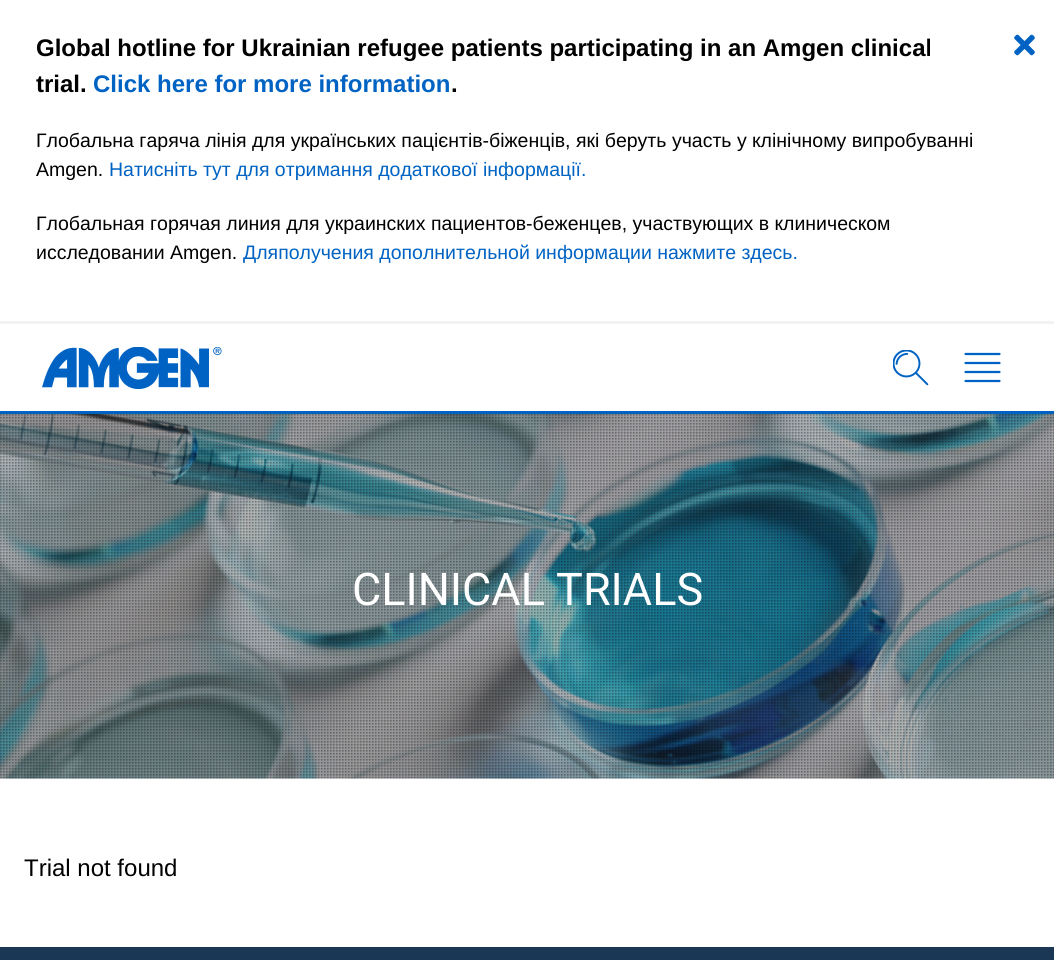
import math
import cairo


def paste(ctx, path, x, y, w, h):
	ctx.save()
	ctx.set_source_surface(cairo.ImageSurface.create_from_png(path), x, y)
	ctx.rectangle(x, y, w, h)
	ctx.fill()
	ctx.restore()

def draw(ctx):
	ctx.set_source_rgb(1, 1, 1)
	ctx.paint()
	ctx.set_source_rgb(0.949, 0.949, 0.949)
	ctx.rectangle(0, 321, 1054, 3)
	ctx.fill()
	ctx.select_font_face('Liberation Sans', cairo.FONT_SLANT_NORMAL, cairo.FONT_WEIGHT_BOLD)
	ctx.set_font_size(24)
	ctx.set_source_rgb(0, 0, 0)
	ctx.move_to(36, 56)
	ctx.show_text('Global hotline for Ukrainian refugee patients participating in an Amgen clinical')
	ctx.move_to(36, 92)
	ctx.show_text('trial.')
	ctx.set_source_rgb(0, 0.388, 0.765)
	ctx.move_to(93, 92)
	ctx.show_text('Click here for more information')
	ctx.set_source_rgb(0, 0, 0)
	ctx.move_to(451, 92)
	ctx.show_text('.')
	ctx.select_font_face('Liberation Sans')
	ctx.set_font_size(19.5)
	ctx.move_to(36, 147)
	ctx.show_text('Глобальна гаряча лінія для українських пацієнтів-біженців, які беруть участь у клінічному випробуванні')
	ctx.move_to(36, 176)
	ctx.show_text('Amgen.')
	ctx.set_source_rgb(0, 0.388, 0.765)
	ctx.move_to(109, 176)
	ctx.show_text('Натисніть тут для отримання додаткової інформації.')
	ctx.set_source_rgb(0, 0, 0)
	ctx.move_to(36, 230)
	ctx.show_text('Глобальная горячая линия для украинских пациентов-беженцев, участвующих в клиническом')
	ctx.move_to(36, 259)
	ctx.show_text('исследовании Amgen.')
	ctx.set_source_rgb(0, 0.388, 0.765)
	ctx.move_to(243, 259)
	ctx.show_text('Дляполучения дополнительной информации нажмите здесь.')
	paste(ctx, 'media/1.png', 1014, 34, 21, 22)
	ctx.rectangle(0, 411, 1054, 3)
	ctx.fill()
	paste(ctx, 'media/2.png', 42, 347, 180, 42)
	paste(ctx, 'media/3.png', 893, 350, 36, 36)
	ctx.new_path()
	ctx.move_to(965.5, 354)
	ctx.line_to(999.5, 354)
	ctx.move_to(965.5, 363)
	ctx.line_to(999.5, 363)
	ctx.move_to(965.5, 372)
	ctx.line_to(999.5, 372)
	ctx.move_to(965.5, 381)
	ctx.line_to(999.5, 381)
	ctx.set_line_width(2.2)
	ctx.set_line_cap(cairo.LINE_CAP_ROUND)
	ctx.stroke()
	paste(ctx, 'media/4.png', 0, 414, 1054, 365)
	paste(ctx, 'media/5.png', 0, 414, 1054, 365)
	ctx.select_font_face('Roboto')
	ctx.set_font_size(45)
	ctx.set_source_rgb(1, 1, 1)
	ctx.move_to(352, 605)
	ctx.show_text('CLINICAL TRIALS')
	ctx.select_font_face('Liberation Sans')
	ctx.set_font_size(24)
	ctx.set_source_rgb(0, 0, 0)
	ctx.move_to(24, 876)
	ctx.show_text('Trial not found')
	ctx.set_source_rgb(0.102, 0.22, 0.337)
	ctx.rectangle(0, 947, 1054, 13)
	ctx.fill()


surface = cairo.ImageSurface(cairo.FORMAT_RGB24, 1054, 960)
ctx = cairo.Context(surface)
options = cairo.FontOptions()
options.set_hint_metrics(cairo.HINT_METRICS_OFF)
options.set_hint_style(cairo.HINT_STYLE_NONE)
ctx.set_font_options(options)
ctx.set_miter_limit(4)
draw(ctx)
surface.write_to_png('image.png')
